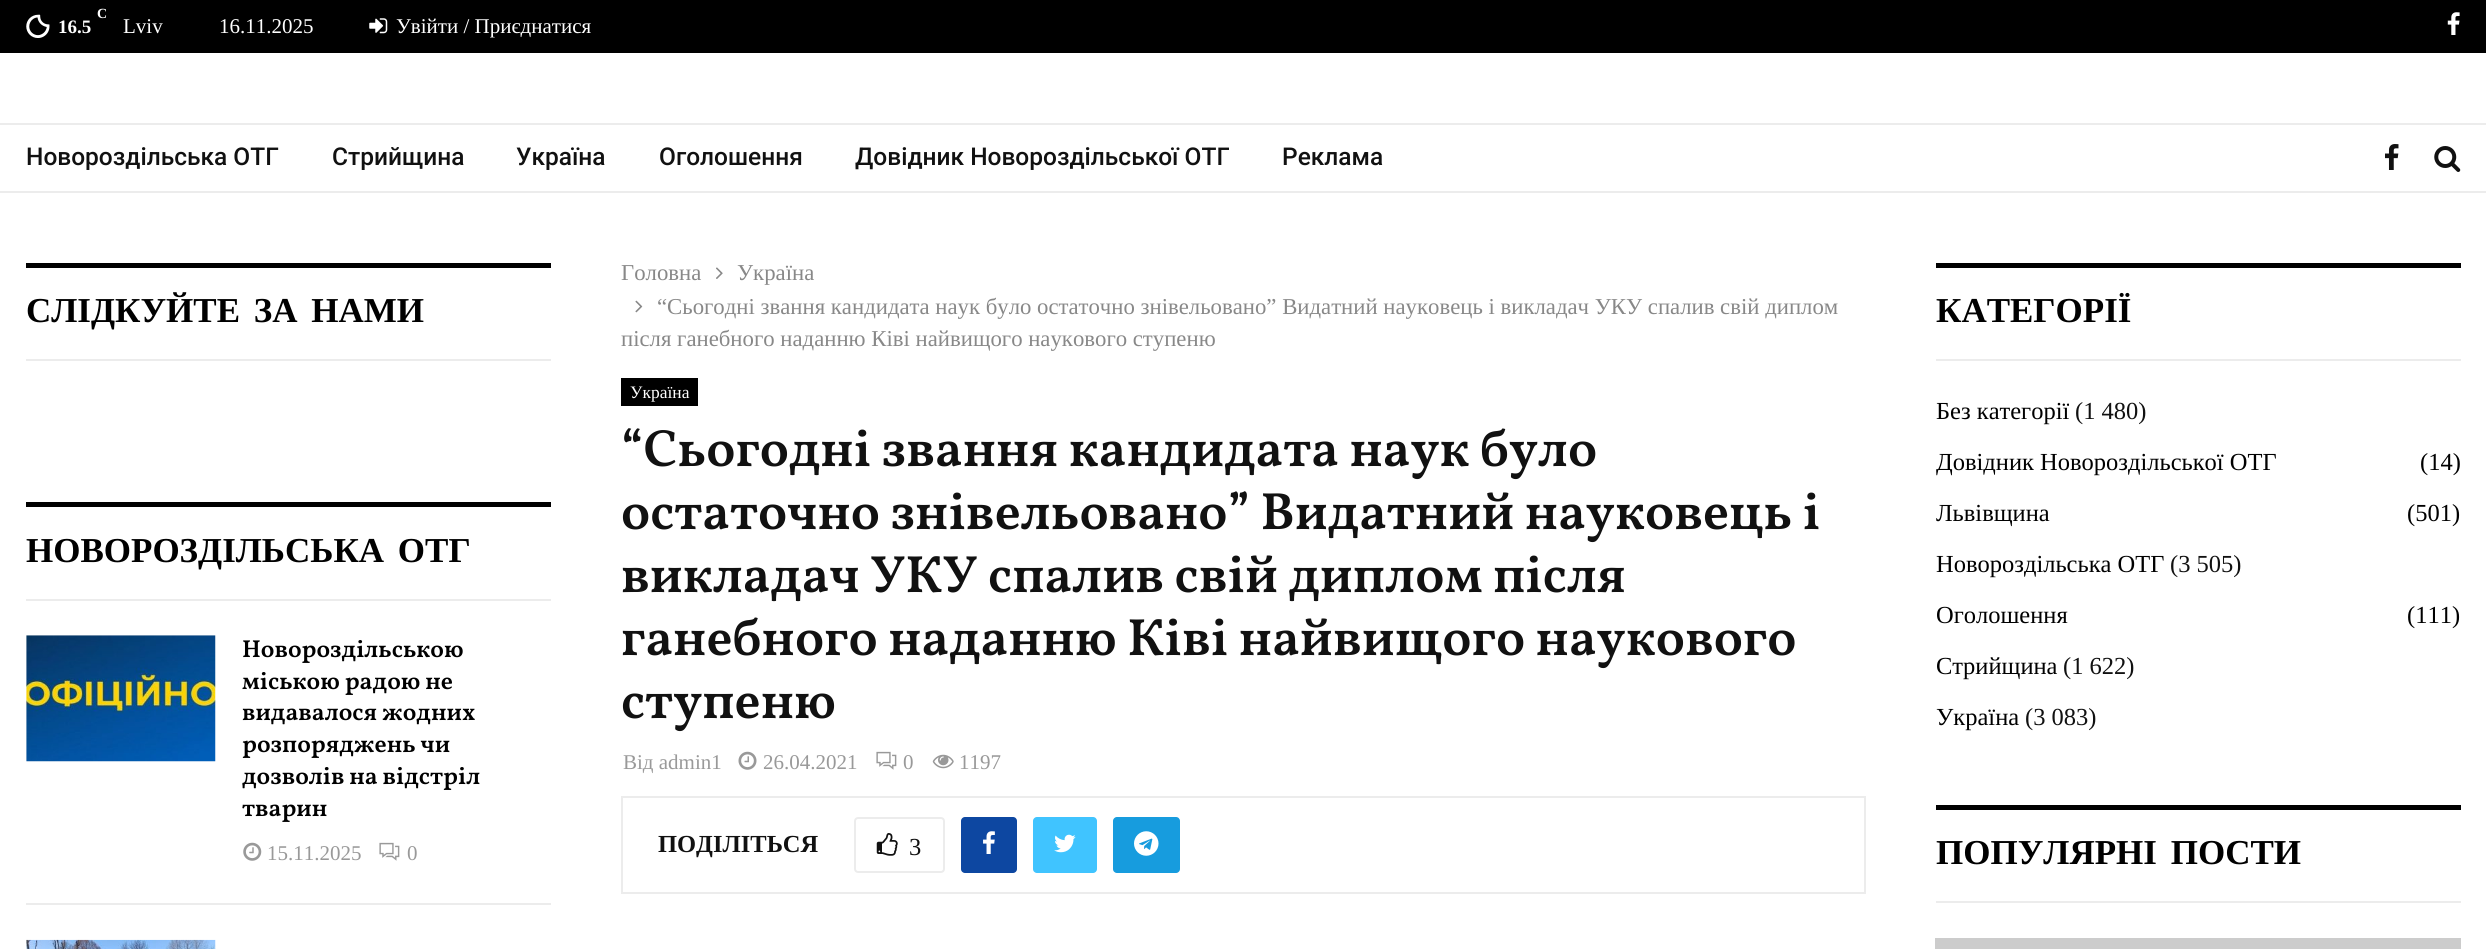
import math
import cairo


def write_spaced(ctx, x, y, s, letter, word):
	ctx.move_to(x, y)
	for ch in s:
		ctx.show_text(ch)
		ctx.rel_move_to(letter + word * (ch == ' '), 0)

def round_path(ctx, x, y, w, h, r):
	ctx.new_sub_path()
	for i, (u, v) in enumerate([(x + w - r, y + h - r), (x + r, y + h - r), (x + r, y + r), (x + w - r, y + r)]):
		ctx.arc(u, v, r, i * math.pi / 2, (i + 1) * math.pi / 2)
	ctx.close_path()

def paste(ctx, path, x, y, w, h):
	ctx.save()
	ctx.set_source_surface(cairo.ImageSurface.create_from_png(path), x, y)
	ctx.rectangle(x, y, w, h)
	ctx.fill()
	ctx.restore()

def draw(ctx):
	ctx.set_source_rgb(1, 1, 1)
	ctx.paint()
	ctx.set_source_rgb(0, 0, 0)
	ctx.rectangle(0, 0, 2486, 53)
	ctx.fill()
	paste(ctx, 'media/1.png', 26, 14, 24, 24)
	ctx.select_font_face('Liberation Serif', cairo.FONT_SLANT_NORMAL, cairo.FONT_WEIGHT_BOLD)
	ctx.set_font_size(14)
	ctx.set_source_rgb(1, 1, 1)
	ctx.move_to(97, 18)
	ctx.show_text('C')
	ctx.set_font_size(19)
	ctx.move_to(58, 33)
	ctx.show_text('16.5')
	ctx.select_font_face('Liberation Serif')
	ctx.set_font_size(21)
	ctx.move_to(123, 33)
	ctx.show_text('Lviv')
	ctx.move_to(219, 33)
	ctx.show_text('16.11.2025')
	paste(ctx, 'media/2.png', 369, 18, 19, 16)
	ctx.move_to(396, 33)
	ctx.show_text('Увійти / Приєднатися')
	paste(ctx, 'media/3.png', 2447, 12, 13, 23)
	ctx.set_source_rgb(0.925, 0.925, 0.925)
	ctx.rectangle(0, 191, 2486, 2)
	ctx.fill()
	ctx.rectangle(0, 123, 2486, 2)
	ctx.fill()
	ctx.select_font_face('Roboto Medium')
	ctx.set_font_size(24.5)
	ctx.set_source_rgb(0.067, 0.067, 0.067)
	for x, y, s in [
		(26, 165, 'Новороздільська ОТГ'),
		(332, 165, 'Стрийщина'),
		(516, 165, 'Україна'),
		(659, 165, 'Оголошення'),
		(855, 165, 'Довідник Новороздільської ОТГ'),
		(1282, 165, 'Реклама'),
	]:
		ctx.move_to(x, y)
		ctx.show_text(s)
	paste(ctx, 'media/4.png', 2385, 144, 14, 26)
	paste(ctx, 'media/5.png', 2434, 146, 27, 26)
	ctx.set_source_rgb(0.925, 0.925, 0.925)
	ctx.rectangle(26, 359, 525, 2)
	ctx.fill()
	ctx.set_source_rgb(0, 0, 0)
	ctx.rectangle(26, 263, 525, 5)
	ctx.fill()
	ctx.select_font_face('Liberation Serif', cairo.FONT_SLANT_NORMAL, cairo.FONT_WEIGHT_BOLD)
	ctx.set_font_size(35)
	write_spaced(ctx, 26, 322, 'СЛІДКУЙТЕ ЗА НАМИ', 0, 5)
	ctx.set_source_rgb(0.925, 0.925, 0.925)
	ctx.rectangle(26, 599, 525, 2)
	ctx.fill()
	ctx.set_source_rgb(0, 0, 0)
	ctx.rectangle(26, 502, 525, 5)
	ctx.fill()
	write_spaced(ctx, 26, 562, 'НОВОРОЗДІЛЬСЬКА ОТГ', 0, 5)
	ctx.set_source_rgb(0.925, 0.925, 0.925)
	ctx.rectangle(26, 903, 525, 2)
	ctx.fill()
	ctx.set_source_rgb(0.961, 0.961, 0.961)
	ctx.rectangle(26, 635, 189, 126)
	ctx.fill()
	paste(ctx, 'media/6.png', 26, 635, 190, 127)
	ctx.select_font_face('Vollkorn SemiBold')
	ctx.set_font_size(24.5)
	ctx.set_source_rgb(0, 0, 0)
	for x, y, s in [
		(242, 657, 'Новороздільською'),
		(242, 689, 'міською радою не'),
		(242, 720, 'видавалося жодних'),
		(242, 752, 'розпоряджень чи'),
		(242, 784, 'дозволів на відстріл'),
		(242, 816, 'тварин'),
	]:
		ctx.move_to(x, y)
		ctx.show_text(s)
	paste(ctx, 'media/7.png', 243, 842, 19, 19)
	ctx.select_font_face('Liberation Serif')
	ctx.set_font_size(21)
	ctx.set_source_rgb(0.6, 0.6, 0.6)
	ctx.move_to(267, 860)
	ctx.show_text('15.11.2025')
	paste(ctx, 'media/8.png', 379, 842, 21, 19)
	ctx.move_to(407, 860)
	ctx.show_text('0')
	ctx.set_source_rgb(0.961, 0.961, 0.961)
	ctx.rectangle(26, 940, 1, 9)
	ctx.fill()
	paste(ctx, 'media/9.png', 26, 939, 190, 10)
	ctx.set_font_size(22.75)
	ctx.set_source_rgb(0.533, 0.533, 0.533)
	ctx.move_to(621, 280)
	ctx.show_text('Головна')
	paste(ctx, 'media/10.png', 716, 267, 7, 12)
	ctx.move_to(737, 280)
	ctx.show_text('Україна')
	paste(ctx, 'media/11.png', 635, 300, 8, 13)
	ctx.move_to(657, 314)
	ctx.show_text('“Сьогодні звання кандидата наук було остаточно знівельовано” Видатний науковець і викладач УКУ спалив свій диплом')
	ctx.move_to(621, 346)
	ctx.show_text('після ганебного наданню Ківі найвищого наукового ступеню')
	ctx.set_source_rgb(0, 0, 0)
	ctx.rectangle(621, 378, 77, 28)
	ctx.fill()
	ctx.set_font_size(17.5)
	ctx.set_source_rgb(1, 1, 1)
	ctx.move_to(630, 398)
	ctx.show_text('Україна')
	ctx.select_font_face('Vollkorn SemiBold')
	ctx.set_font_size(52.5)
	ctx.set_source_rgb(0.067, 0.067, 0.067)
	for x, y, s in [
		(621, 466, '“Сьогодні звання кандидата наук було'),
		(621, 529, 'остаточно знівельовано” Видатний науковець і'),
		(621, 592, 'викладач УКУ спалив свій диплом після'),
		(621, 655, 'ганебного наданню Ківі найвищого наукового'),
		(621, 718, 'ступеню'),
	]:
		ctx.move_to(x, y)
		ctx.show_text(s)
	ctx.select_font_face('Liberation Serif')
	ctx.set_font_size(21)
	ctx.set_source_rgb(0.6, 0.6, 0.6)
	ctx.move_to(623, 769)
	ctx.show_text('Від admin1')
	paste(ctx, 'media/12.png', 738, 751, 19, 19)
	ctx.move_to(763, 769)
	ctx.show_text('26.04.2021')
	paste(ctx, 'media/8.png', 876, 751, 21, 19)
	ctx.move_to(903, 769)
	ctx.show_text('0')
	paste(ctx, 'media/13.png', 932, 754, 22, 15)
	ctx.move_to(959, 769)
	ctx.show_text('1197')
	ctx.rectangle(622, 797, 1243, 96)
	ctx.set_source_rgb(0.925, 0.925, 0.925)
	ctx.stroke()
	ctx.select_font_face('Liberation Serif', cairo.FONT_SLANT_NORMAL, cairo.FONT_WEIGHT_BOLD)
	ctx.set_font_size(24.5)
	ctx.set_source_rgb(0.067, 0.067, 0.067)
	ctx.move_to(658, 852)
	ctx.show_text('ПОДІЛІТЬСЯ')
	round_path(ctx, 855, 818, 89, 54, 3)
	ctx.set_source_rgb(0.925, 0.925, 0.925)
	ctx.stroke()
	paste(ctx, 'media/14.png', 876, 833, 22, 23)
	ctx.select_font_face('Liberation Serif')
	ctx.set_source_rgb(0.067, 0.067, 0.067)
	ctx.move_to(909, 855)
	ctx.show_text('3')
	ctx.set_source_rgb(0.051, 0.278, 0.631)
	round_path(ctx, 961, 817, 56, 56, 4)
	ctx.fill()
	paste(ctx, 'media/15.png', 983, 831, 12, 23)
	ctx.set_source_rgb(0.251, 0.769, 1)
	round_path(ctx, 1033, 817, 64, 56, 4)
	ctx.fill()
	paste(ctx, 'media/16.png', 1054, 834, 22, 19)
	ctx.set_source_rgb(0.09, 0.612, 0.871)
	round_path(ctx, 1113, 817, 67, 56, 4)
	ctx.fill()
	paste(ctx, 'media/17.png', 1134, 831, 25, 25)
	ctx.set_source_rgb(0.925, 0.925, 0.925)
	ctx.rectangle(1936, 359, 525, 2)
	ctx.fill()
	ctx.set_source_rgb(0, 0, 0)
	ctx.rectangle(1936, 263, 525, 5)
	ctx.fill()
	ctx.select_font_face('Liberation Serif', cairo.FONT_SLANT_NORMAL, cairo.FONT_WEIGHT_BOLD)
	ctx.set_font_size(35)
	ctx.move_to(1936, 322)
	ctx.show_text('КАТЕГОРІЇ')
	ctx.select_font_face('Liberation Serif')
	ctx.set_font_size(24.5)
	ctx.move_to(1936, 419)
	ctx.show_text('Без категорії')
	ctx.set_source_rgb(0.067, 0.067, 0.067)
	ctx.move_to(2075, 419)
	ctx.show_text('(1 480)')
	ctx.save()
	ctx.rectangle(1936, 446, 525, 44)
	ctx.clip()
	ctx.set_source_rgb(0, 0, 0)
	ctx.move_to(1936, 470)
	ctx.show_text('Довідник Новороздільської ОТГ')
	ctx.restore()
	ctx.set_source_rgb(0, 0, 0)
	ctx.move_to(2420, 470)
	ctx.show_text('(14)')
	ctx.save()
	ctx.rectangle(1936, 499, 525, 42)
	ctx.clip()
	ctx.move_to(1936, 521)
	ctx.show_text('Львівщина')
	ctx.restore()
	ctx.move_to(2407, 521)
	ctx.show_text('(501)')
	ctx.move_to(1936, 572)
	ctx.show_text('Новороздільська ОТГ')
	ctx.set_source_rgb(0.067, 0.067, 0.067)
	ctx.move_to(2170, 572)
	ctx.show_text('(3 505)')
	ctx.set_source_rgb(0, 0, 0)
	for x, y, s in [
		(1936, 623, 'Оголошення'),
		(2407, 623, '(111)'),
		(1936, 674, 'Стрийщина'),
	]:
		ctx.move_to(x, y)
		ctx.show_text(s)
	ctx.set_source_rgb(0.067, 0.067, 0.067)
	ctx.move_to(2063, 674)
	ctx.show_text('(1 622)')
	ctx.set_source_rgb(0, 0, 0)
	ctx.move_to(1936, 725)
	ctx.show_text('Україна')
	ctx.set_source_rgb(0.067, 0.067, 0.067)
	ctx.move_to(2025, 725)
	ctx.show_text('(3 083)')
	ctx.set_source_rgb(0.925, 0.925, 0.925)
	ctx.rectangle(1936, 901, 525, 2)
	ctx.fill()
	ctx.set_source_rgb(0, 0, 0)
	ctx.rectangle(1936, 805, 525, 5)
	ctx.fill()
	ctx.select_font_face('Liberation Serif', cairo.FONT_SLANT_NORMAL, cairo.FONT_WEIGHT_BOLD)
	ctx.set_font_size(35)
	write_spaced(ctx, 1936, 864, 'ПОПУЛЯРНІ ПОСТИ', 0, 5)
	ctx.set_source_rgb(0.8, 0.8, 0.8)
	ctx.rectangle(1935, 938, 526, 11)
	ctx.fill()


surface = cairo.ImageSurface(cairo.FORMAT_RGB24, 2486, 949)
ctx = cairo.Context(surface)
options = cairo.FontOptions()
options.set_hint_metrics(cairo.HINT_METRICS_OFF)
options.set_hint_style(cairo.HINT_STYLE_NONE)
ctx.set_font_options(options)
ctx.set_miter_limit(4)
draw(ctx)
surface.write_to_png('image.png')
